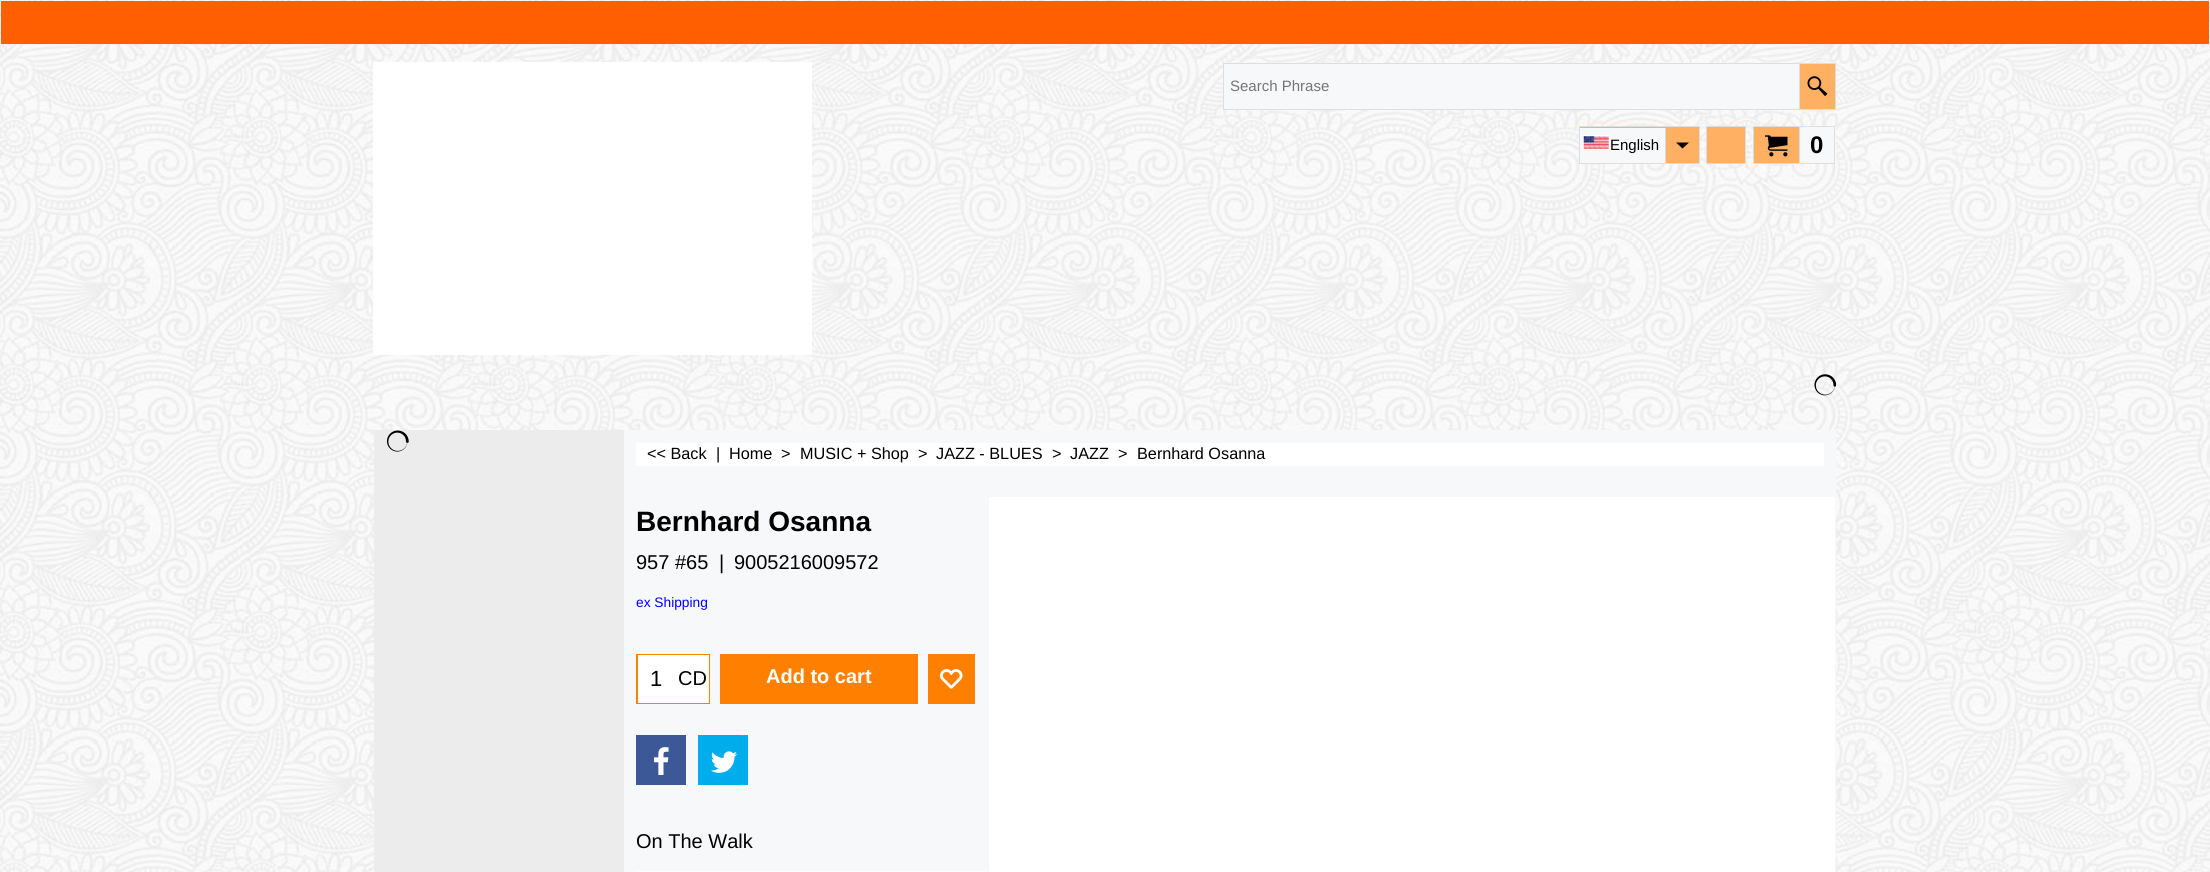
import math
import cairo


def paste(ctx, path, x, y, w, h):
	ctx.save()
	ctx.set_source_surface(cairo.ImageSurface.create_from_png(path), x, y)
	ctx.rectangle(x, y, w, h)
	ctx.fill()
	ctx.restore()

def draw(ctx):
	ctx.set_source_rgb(1, 1, 1)
	ctx.paint()
	paste(ctx, 'media/1.png', 0, 0, 2210, 872)
	ctx.set_source_rgb(1, 0.373, 0)
	ctx.rectangle(1, 1, 2208, 43)
	ctx.fill()
	ctx.set_source_rgb(1, 1, 1)
	ctx.rectangle(373, 62, 439, 293)
	ctx.fill()
	ctx.rectangle(1223.5, 63.5, 612, 46)
	ctx.set_source_rgb(0.871, 0.871, 0.871)
	ctx.set_line_width(1)
	ctx.stroke()
	ctx.set_source_rgb(0.965, 0.969, 0.973)
	ctx.rectangle(1224, 64, 575, 45)
	ctx.fill()
	ctx.select_font_face('Liberation Sans')
	ctx.set_font_size(15)
	ctx.set_source_rgb(0.459, 0.459, 0.459)
	ctx.move_to(1230, 91)
	ctx.show_text('Search Phrase')
	ctx.set_source_rgb(1, 0.69, 0.384)
	ctx.rectangle(1800, 64, 35, 45)
	ctx.fill()
	ctx.set_source_rgb(0.871, 0.871, 0.871)
	ctx.rectangle(1799, 64, 1, 45)
	ctx.fill()
	paste(ctx, 'media/2.png', 1807, 76, 21, 21)
	ctx.set_source_rgb(1, 0.69, 0.384)
	ctx.rectangle(1580, 127, 119, 1)
	ctx.fill()
	ctx.rectangle(1579.5, 126.5, 120, 37)
	ctx.set_source_rgb(0.871, 0.871, 0.871)
	ctx.stroke()
	ctx.set_source_rgb(0.965, 0.969, 0.973)
	ctx.rectangle(1580, 128, 85, 35)
	ctx.fill()
	ctx.rectangle(1583.5, 135.5, 26, 14)
	ctx.set_source_rgb(1, 1, 1)
	ctx.stroke()
	paste(ctx, 'media/3.png', 1583, 136, 26, 13)
	ctx.set_source_rgb(0, 0, 0)
	ctx.move_to(1610, 150)
	ctx.show_text('English')
	ctx.set_source_rgb(1, 0.69, 0.384)
	ctx.rectangle(1666, 128, 33, 35)
	ctx.fill()
	ctx.set_source_rgb(0.871, 0.871, 0.871)
	ctx.rectangle(1665, 128, 1, 35)
	ctx.fill()
	ctx.set_source_rgb(0, 0, 0)
	ctx.new_path()
	ctx.move_to(1676, 142.5)
	ctx.line_to(1682.5, 148.5)
	ctx.line_to(1689, 142.5)
	ctx.close_path()
	ctx.fill()
	ctx.set_source_rgb(1, 0.69, 0.384)
	ctx.rectangle(1706.5, 126.5, 39, 37)
	ctx.fill_preserve()
	ctx.set_source_rgb(0.871, 0.871, 0.871)
	ctx.stroke()
	ctx.set_source_rgb(0.965, 0.969, 0.973)
	ctx.rectangle(1800, 126, 36, 38)
	ctx.fill()
	ctx.set_source_rgb(1, 0.69, 0.384)
	ctx.rectangle(1753.5, 126.5, 46, 37)
	ctx.fill_preserve()
	ctx.set_source_rgb(0.871, 0.871, 0.871)
	ctx.stroke()
	paste(ctx, 'media/4.png', 1765, 135, 23, 22)
	ctx.rectangle(1799.5, 126.5, 35, 37)
	ctx.stroke()
	ctx.select_font_face('Liberation Sans', cairo.FONT_SLANT_NORMAL, cairo.FONT_WEIGHT_BOLD)
	ctx.set_font_size(24)
	ctx.set_source_rgb(0, 0, 0)
	ctx.move_to(1810, 153)
	ctx.show_text('0')
	paste(ctx, 'media/5.png', 1814, 374, 22, 22)
	ctx.set_source_rgb(0.922, 0.922, 0.922)
	ctx.rectangle(374, 430, 250, 442)
	ctx.fill()
	paste(ctx, 'media/6.png', 386, 430, 23, 22)
	ctx.set_source_rgb(0.965, 0.969, 0.973)
	ctx.rectangle(624, 430, 1212, 442)
	ctx.fill()
	ctx.set_source_rgb(1, 1, 1)
	ctx.rectangle(636, 443, 1188, 23)
	ctx.fill()
	ctx.select_font_face('Liberation Sans')
	ctx.set_font_size(16.25)
	ctx.set_source_rgb(0, 0, 0)
	for x, y, s in [
		(647, 459, '<< Back'),
		(716, 459, '|'),
		(729, 459, 'Home'),
		(781, 459, '>'),
		(800, 459, 'MUSIC + Shop'),
		(918, 459, '>'),
		(936, 459, 'JAZZ - BLUES'),
		(1052, 459, '>'),
		(1070, 459, 'JAZZ'),
		(1118, 459, '>'),
		(1137, 459, 'Bernhard Osanna'),
	]:
		ctx.move_to(x, y)
		ctx.show_text(s)
	ctx.select_font_face('Liberation Sans', cairo.FONT_SLANT_NORMAL, cairo.FONT_WEIGHT_BOLD)
	ctx.set_font_size(28)
	ctx.move_to(636, 531)
	ctx.show_text('Bernhard Osanna')
	ctx.select_font_face('Liberation Sans')
	ctx.set_font_size(20)
	for x, y, s in [
		(636, 569, '957 #65'),
		(719, 569, '|'),
		(734, 569, '9005216009572'),
	]:
		ctx.move_to(x, y)
		ctx.show_text(s)
	ctx.set_font_size(13.75)
	ctx.set_source_rgb(0, 0, 1)
	ctx.move_to(636, 607)
	ctx.show_text('ex Shipping')
	ctx.set_source_rgb(1, 0.498, 0)
	ctx.rectangle(636, 654, 74, 50)
	ctx.fill()
	ctx.set_source_rgb(1, 1, 1)
	ctx.rectangle(638, 655, 71, 48)
	ctx.fill()
	ctx.set_font_size(22)
	ctx.set_source_rgb(0, 0, 0)
	ctx.move_to(650, 686)
	ctx.show_text('1')
	ctx.set_font_size(20)
	ctx.move_to(678, 685)
	ctx.show_text('CD')
	ctx.set_source_rgb(1, 0.498, 0)
	ctx.rectangle(720, 654, 198, 50)
	ctx.fill()
	ctx.select_font_face('Liberation Sans', cairo.FONT_SLANT_NORMAL, cairo.FONT_WEIGHT_BOLD)
	ctx.set_source_rgb(1, 1, 1)
	ctx.move_to(766, 683)
	ctx.show_text('Add to cart')
	ctx.set_source_rgb(1, 0.498, 0)
	ctx.rectangle(928, 654, 47, 50)
	ctx.fill()
	paste(ctx, 'media/7.png', 940, 669, 23, 20)
	ctx.set_source_rgb(0.235, 0.345, 0.592)
	ctx.rectangle(636, 735, 50, 50)
	ctx.fill()
	paste(ctx, 'media/8.png', 654, 747, 15, 28)
	ctx.set_source_rgb(0, 0.678, 0.925)
	ctx.rectangle(698, 735, 50, 50)
	ctx.fill()
	paste(ctx, 'media/9.png', 711, 751, 26, 22)
	ctx.set_source_rgb(1, 1, 1)
	ctx.rectangle(989, 497, 846, 375)
	ctx.fill()
	ctx.select_font_face('Liberation Sans')
	ctx.set_source_rgb(0, 0, 0)
	ctx.move_to(636, 848)
	ctx.show_text('On The Walk')
	paste(ctx, 'media/10.png', 636, 871, 351, 1)


surface = cairo.ImageSurface(cairo.FORMAT_RGB24, 2210, 872)
ctx = cairo.Context(surface)
options = cairo.FontOptions()
options.set_hint_metrics(cairo.HINT_METRICS_OFF)
options.set_hint_style(cairo.HINT_STYLE_NONE)
ctx.set_font_options(options)
ctx.set_miter_limit(4)
draw(ctx)
surface.write_to_png('image.png')
